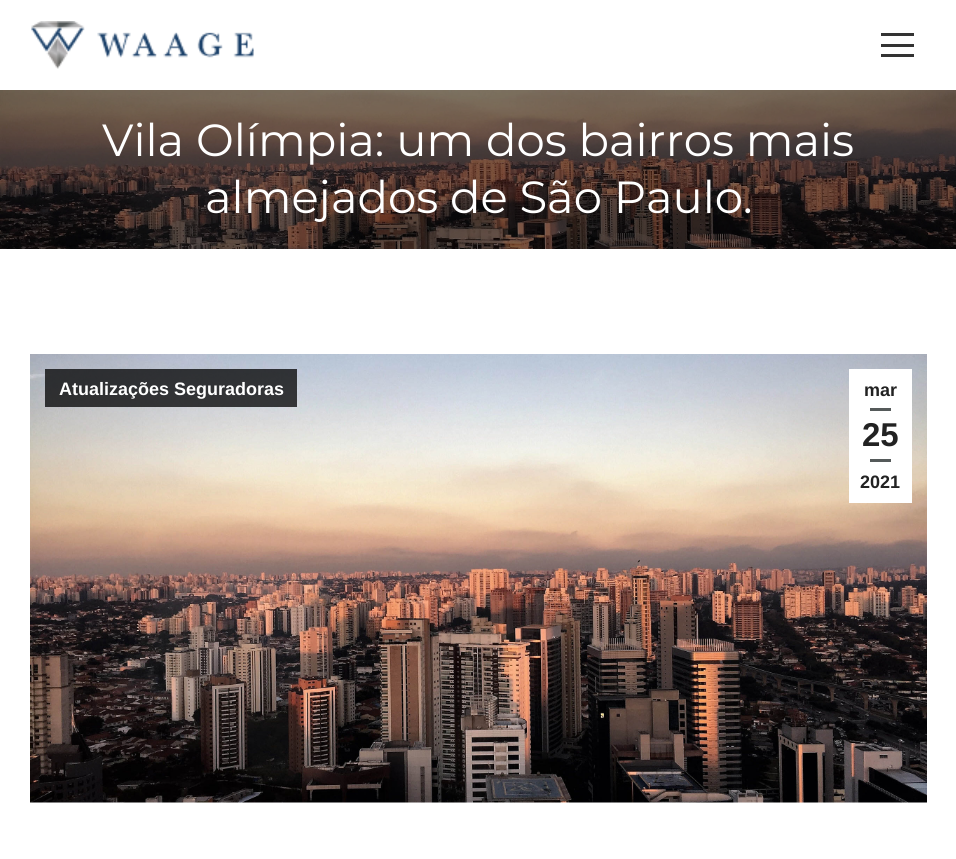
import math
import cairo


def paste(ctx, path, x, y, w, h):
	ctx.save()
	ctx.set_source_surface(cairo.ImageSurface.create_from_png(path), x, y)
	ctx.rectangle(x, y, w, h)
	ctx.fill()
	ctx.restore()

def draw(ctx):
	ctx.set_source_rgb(1, 1, 1)
	ctx.paint()
	paste(ctx, 'media/1.png', 31, 21, 223, 48)
	ctx.set_source_rgb(0.2, 0.2, 0.2)
	ctx.rectangle(881, 33, 33, 3)
	ctx.rectangle(881, 44, 33, 3)
	ctx.rectangle(881, 54, 33, 3)
	ctx.fill()
	paste(ctx, 'media/2.png', 0, 90, 956, 159)
	ctx.select_font_face('Montserrat')
	ctx.set_font_size(45)
	ctx.set_source_rgb(1, 1, 1)
	ctx.move_to(102, 156)
	ctx.show_text('Vila Olímpia: um dos bairros mais')
	ctx.move_to(205, 213)
	ctx.show_text('almejados de São Paulo.')
	paste(ctx, 'media/3.png', 30, 354, 897, 449)
	ctx.set_source_rgba(0, 0, 0, 0.75)
	ctx.rectangle(45, 369, 252, 38)
	ctx.fill()
	ctx.select_font_face('Liberation Sans', cairo.FONT_SLANT_NORMAL, cairo.FONT_WEIGHT_BOLD)
	ctx.set_font_size(18)
	ctx.set_source_rgb(1, 1, 1)
	ctx.move_to(59, 395)
	ctx.show_text('Atualizações Seguradoras')
	ctx.rectangle(849, 369, 63, 134)
	ctx.fill()
	ctx.set_source_rgb(0.133, 0.133, 0.133)
	ctx.move_to(864, 396)
	ctx.show_text('mar')
	ctx.set_source_rgb(0.333, 0.353, 0.353)
	ctx.rectangle(870, 408, 21, 3)
	ctx.fill()
	ctx.set_font_size(33)
	ctx.set_source_rgb(0.133, 0.133, 0.133)
	ctx.move_to(862, 446)
	ctx.show_text('25')
	ctx.set_source_rgb(0.333, 0.353, 0.353)
	ctx.rectangle(870, 459, 21, 3)
	ctx.fill()
	ctx.set_font_size(18)
	ctx.set_source_rgb(0.133, 0.133, 0.133)
	ctx.move_to(860, 488)
	ctx.show_text('2021')


surface = cairo.ImageSurface(cairo.FORMAT_RGB24, 956, 859)
ctx = cairo.Context(surface)
options = cairo.FontOptions()
options.set_hint_metrics(cairo.HINT_METRICS_OFF)
options.set_hint_style(cairo.HINT_STYLE_NONE)
ctx.set_font_options(options)
ctx.set_miter_limit(4)
draw(ctx)
surface.write_to_png('image.png')
